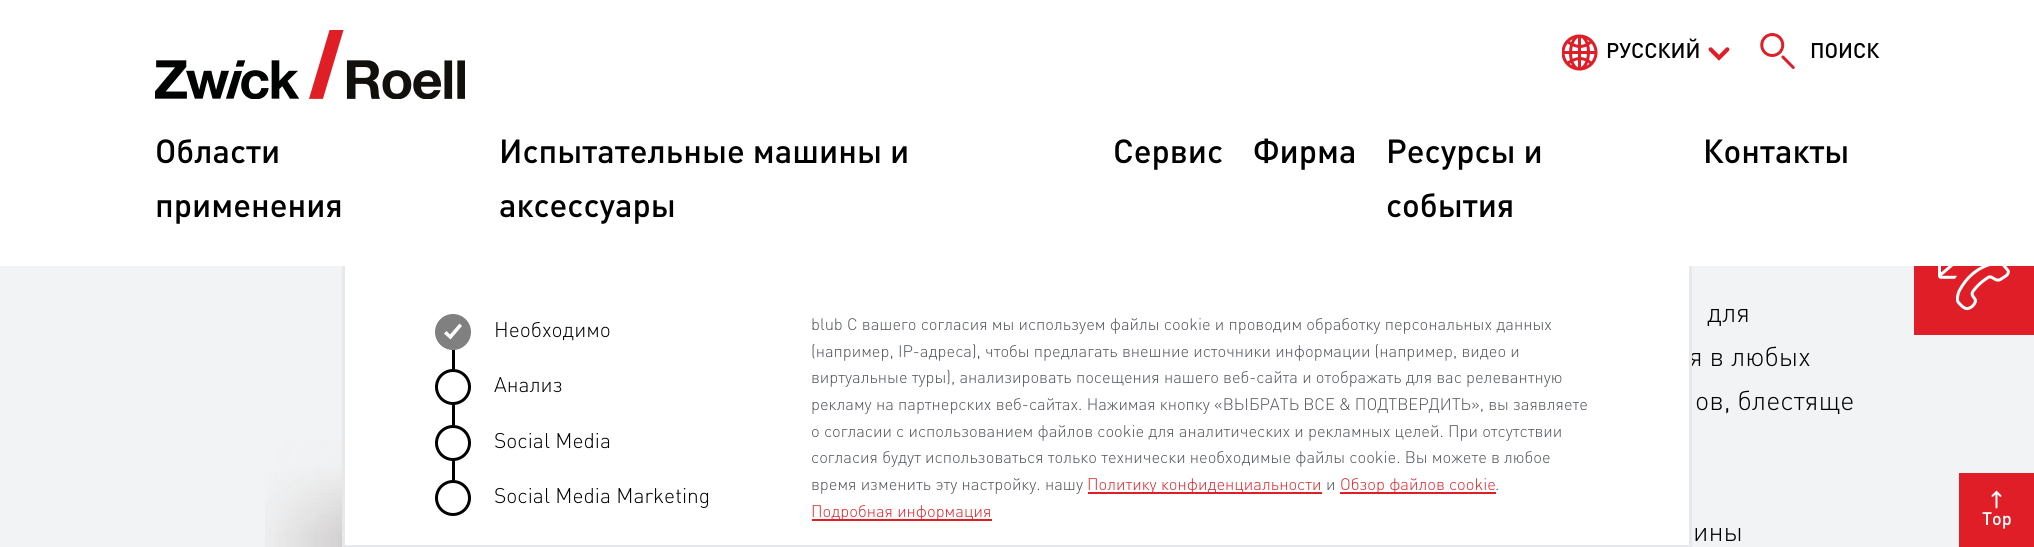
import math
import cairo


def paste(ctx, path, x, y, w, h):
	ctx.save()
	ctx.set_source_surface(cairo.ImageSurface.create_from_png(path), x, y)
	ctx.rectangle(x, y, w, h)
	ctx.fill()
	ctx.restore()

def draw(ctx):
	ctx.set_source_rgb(0.949, 0.953, 0.957)
	ctx.paint()
	ctx.select_font_face('DIN Light')
	ctx.set_font_size(27)
	ctx.set_source_rgb(0, 0, 0)
	ctx.move_to(1689, 366)
	ctx.show_text('я в любых')
	ctx.set_source_rgb(1, 1, 1)
	ctx.rectangle(345, 266, 1344, 279)
	ctx.fill()
	ctx.rectangle(343.5, 204.5, 1347, 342)
	ctx.set_source_rgb(0.906, 0.91, 0.918)
	ctx.set_line_width(3)
	ctx.stroke()
	ctx.set_source_rgb(1, 1, 1)
	ctx.rectangle(0, 0, 2034, 266)
	ctx.fill()
	paste(ctx, 'media/1.png', 155, 30, 310, 69)
	paste(ctx, 'media/2.png', 1562, 34, 36, 37)
	ctx.select_font_face('DIN Medium')
	ctx.set_font_size(21)
	ctx.set_source_rgb(0, 0, 0)
	ctx.move_to(1606, 58)
	ctx.show_text('РУССКИЙ')
	paste(ctx, 'media/3.png', 1708, 47, 22, 14)
	paste(ctx, 'media/4.png', 1760, 33, 35, 36)
	ctx.move_to(1810, 58)
	ctx.show_text('ПОИСК')
	ctx.set_font_size(33)
	for x, y, s in [
		(155, 163, 'Области'),
		(155, 217, 'применения'),
		(499, 163, 'Испытательные машины и'),
		(499, 217, 'аксессуары'),
		(1113, 163, 'Сервис'),
		(1253, 163, 'Фирма'),
		(1386, 163, 'Ресурсы и'),
		(1386, 217, 'события'),
		(1703, 163, 'Контакты'),
	]:
		ctx.move_to(x, y)
		ctx.show_text(s)
	ctx.set_source_rgb(0.875, 0.118, 0.153)
	ctx.rectangle(1914, 266, 120, 69)
	ctx.fill()
	paste(ctx, 'media/5.png', 1938, 266, 72, 45)
	paste(ctx, 'media/6.png', 265, 440, 77, 107)
	ctx.select_font_face('DIN Light')
	ctx.set_font_size(27)
	ctx.set_source_rgb(0, 0, 0)
	for x, y, s in [
		(1707, 322, 'для'),
		(1695, 410, 'ов, блестяще'),
		(1693, 541, 'ины'),
	]:
		ctx.move_to(x, y)
		ctx.show_text(s)
	ctx.set_source_rgb(0.502, 0.502, 0.502)
	ctx.new_path()
	ctx.arc(453, 332, 16.5, 0, 2 * math.pi)
	ctx.fill_preserve()
	ctx.stroke()
	ctx.set_source_rgb(1, 1, 1)
	ctx.new_path()
	ctx.move_to(450.5, 339.5)
	ctx.line_to(462, 326)
	ctx.line_to(459.5, 323.5)
	ctx.line_to(450, 334.5)
	ctx.line_to(446.5, 331)
	ctx.line_to(444, 333.5)
	ctx.close_path()
	ctx.fill()
	ctx.set_font_size(21)
	ctx.set_source_rgb(0, 0, 0)
	ctx.move_to(494, 337)
	ctx.show_text('Необходимо')
	ctx.rectangle(452, 350, 3, 19)
	ctx.fill()
	ctx.arc(453, 387, 16.5, 0, 2 * math.pi)
	ctx.stroke()
	ctx.move_to(494, 392)
	ctx.show_text('Анализ')
	ctx.rectangle(452, 405, 3, 20)
	ctx.fill()
	ctx.arc(453, 443, 16.5, 0, 2 * math.pi)
	ctx.stroke()
	ctx.move_to(494, 448)
	ctx.show_text('Social Media')
	ctx.rectangle(452, 461, 3, 19)
	ctx.fill()
	ctx.arc(453, 498, 16.5, 0, 2 * math.pi)
	ctx.stroke()
	ctx.move_to(494, 503)
	ctx.show_text('Social Media Marketing')
	ctx.set_font_size(16.5)
	ctx.set_source_rgb(0.298, 0.314, 0.337)
	for x, y, s in [
		(811, 330, 'blub С вашего согласия мы используем файлы cookie и проводим обработку персональных данных'),
		(811, 357, '(например, IP-адреса), чтобы предлагать внешние источники информации (например, видео и'),
		(811, 383, 'виртуальные туры), анализировать посещения нашего веб-сайта и отображать для вас релевантную'),
		(811, 410, 'рекламу на партнерских веб-сайтах. Нажимая кнопку «ВЫБРАТЬ ВСЕ & ПОДТВЕРДИТЬ», вы заявляете'),
		(811, 437, 'о согласии с использованием файлов cookie для аналитических и рекламных целей. При отсутствии'),
		(811, 463, 'согласия будут использоваться только технически необходимые файлы cookie. Вы можете в любое'),
		(811, 490, 'время изменить эту настройку. нашу'),
	]:
		ctx.move_to(x, y)
		ctx.show_text(s)
	ctx.set_source_rgb(0.875, 0.118, 0.153)
	ctx.rectangle(1088, 492, 234, 2)
	ctx.fill()
	ctx.move_to(1087, 490)
	ctx.show_text('Политику конфиденциальности')
	ctx.set_source_rgb(0.298, 0.314, 0.337)
	ctx.move_to(1326, 490)
	ctx.show_text('и')
	ctx.set_source_rgb(0.875, 0.118, 0.153)
	ctx.rectangle(1340, 492, 156, 2)
	ctx.fill()
	ctx.move_to(1340, 490)
	ctx.show_text('Обзор файлов cookie')
	ctx.set_source_rgb(0.298, 0.314, 0.337)
	ctx.move_to(1495, 490)
	ctx.show_text('.')
	ctx.set_source_rgb(0.875, 0.118, 0.153)
	ctx.rectangle(812, 519, 180, 2)
	ctx.fill()
	ctx.move_to(811, 517)
	ctx.show_text('Подробная информация')
	ctx.rectangle(1959, 473, 75, 74)
	ctx.fill()
	paste(ctx, 'media/7.png', 1991, 490, 11, 19)
	ctx.select_font_face('DIN Medium')
	ctx.set_font_size(18)
	ctx.set_source_rgb(1, 1, 1)
	ctx.move_to(1982, 525)
	ctx.show_text('Top')


surface = cairo.ImageSurface(cairo.FORMAT_RGB24, 2034, 547)
ctx = cairo.Context(surface)
options = cairo.FontOptions()
options.set_hint_metrics(cairo.HINT_METRICS_OFF)
options.set_hint_style(cairo.HINT_STYLE_NONE)
ctx.set_font_options(options)
ctx.set_miter_limit(4)
draw(ctx)
surface.write_to_png('image.png')
